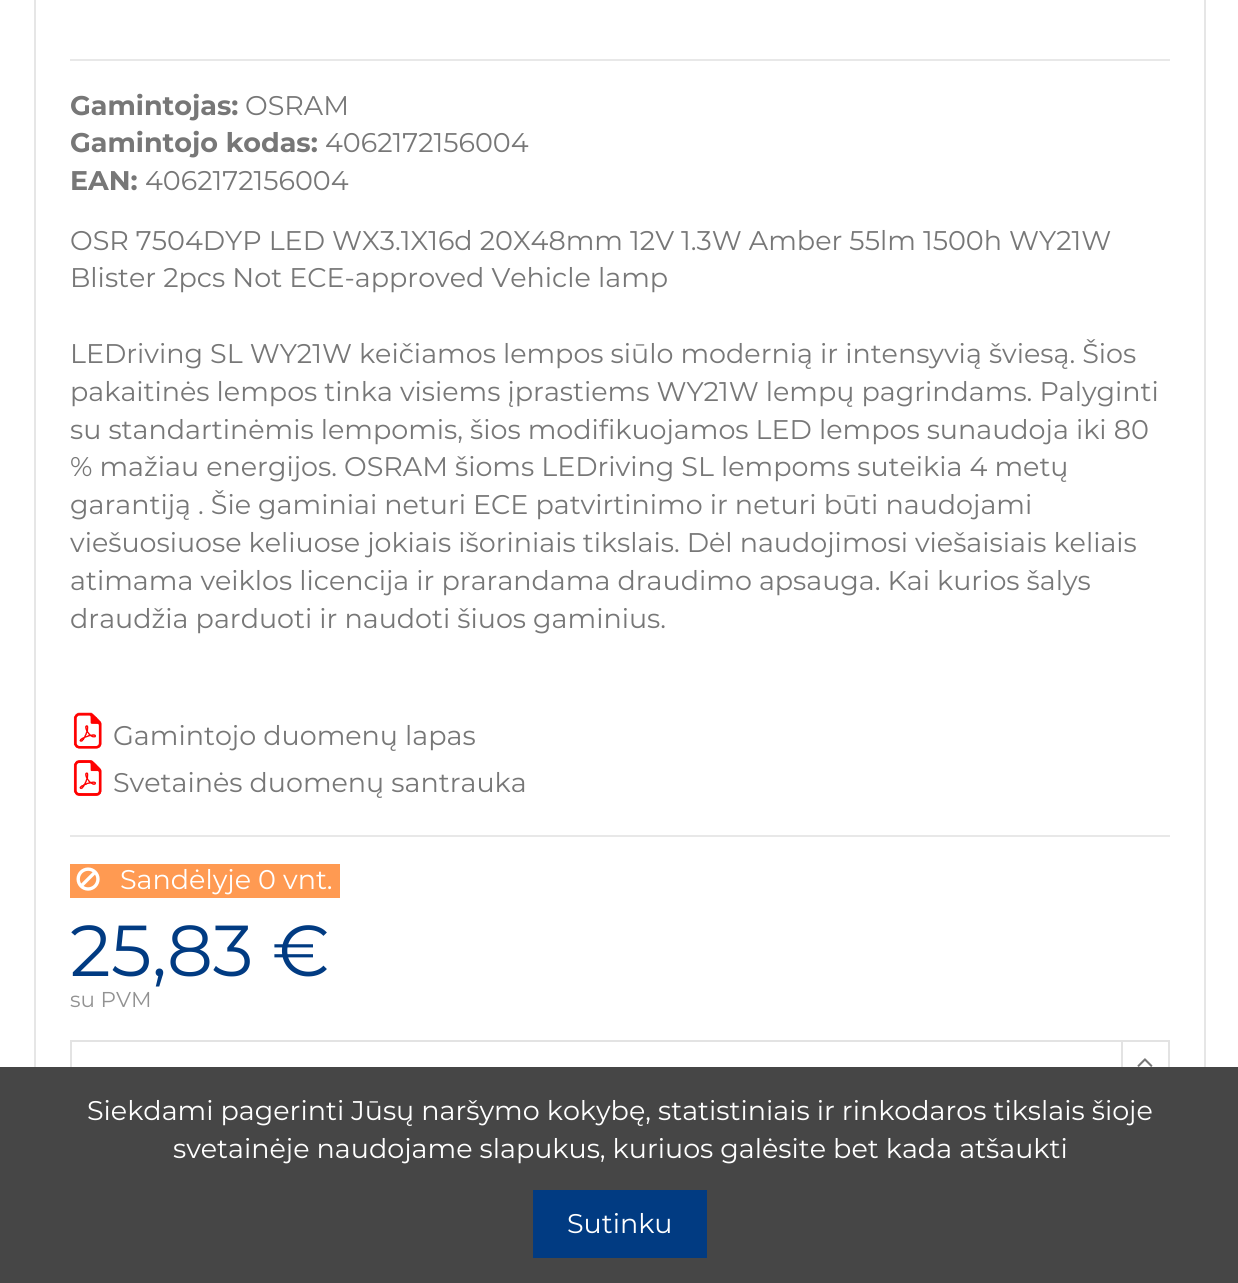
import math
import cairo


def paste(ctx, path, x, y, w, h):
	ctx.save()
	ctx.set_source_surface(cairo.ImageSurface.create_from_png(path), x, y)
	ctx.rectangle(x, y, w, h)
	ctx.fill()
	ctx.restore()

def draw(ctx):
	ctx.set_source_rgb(1, 1, 1)
	ctx.paint()
	ctx.rectangle(35, -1, 1170, 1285)
	ctx.set_source_rgb(0.902, 0.902, 0.902)
	ctx.stroke()
	ctx.set_source_rgb(0.91, 0.91, 0.91)
	ctx.rectangle(70, 59, 1100, 2)
	ctx.fill()
	ctx.select_font_face('Montserrat', cairo.FONT_SLANT_NORMAL, cairo.FONT_WEIGHT_BOLD)
	ctx.set_font_size(27)
	ctx.set_source_rgb(0.467, 0.467, 0.467)
	ctx.move_to(70, 115)
	ctx.show_text('Gamintojas:')
	ctx.select_font_face('Montserrat')
	ctx.move_to(245, 115)
	ctx.show_text('OSRAM')
	ctx.select_font_face('Montserrat', cairo.FONT_SLANT_NORMAL, cairo.FONT_WEIGHT_BOLD)
	ctx.move_to(70, 152)
	ctx.show_text('Gamintojo kodas:')
	ctx.select_font_face('Montserrat')
	ctx.move_to(325, 152)
	ctx.show_text('4062172156004')
	ctx.select_font_face('Montserrat', cairo.FONT_SLANT_NORMAL, cairo.FONT_WEIGHT_BOLD)
	ctx.move_to(70, 190)
	ctx.show_text('EAN:')
	ctx.select_font_face('Montserrat')
	for x, y, s in [
		(145, 190, '4062172156004'),
		(70, 250, 'OSR 7504DYP LED WX3.1X16d 20X48mm 12V 1.3W Amber 55lm 1500h WY21W'),
		(70, 287, 'Blister 2pcs Not ECE-approved Vehicle lamp'),
		(70, 363, 'LEDriving SL WY21W keičiamos lempos siūlo modernią ir intensyvią šviesą. Šios'),
		(70, 401, 'pakaitinės lempos tinka visiems įprastiems WY21W lempų pagrindams. Palyginti'),
		(70, 439, 'su standartinėmis lempomis, šios modifikuojamos LED lempos sunaudoja iki 80'),
		(70, 476, '% mažiau energijos. OSRAM šioms LEDriving SL lempoms suteikia 4 metų'),
		(70, 514, 'garantiją . Šie gaminiai neturi ECE patvirtinimo ir neturi būti naudojami'),
		(70, 552, 'viešuosiuose keliuose jokiais išoriniais tikslais. Dėl naudojimosi viešaisiais keliais'),
		(70, 590, 'atimama veiklos licencija ir prarandama draudimo apsauga. Kai kurios šalys'),
		(70, 628, 'draudžia parduoti ir naudoti šiuos gaminius.'),
	]:
		ctx.move_to(x, y)
		ctx.show_text(s)
	paste(ctx, 'media/1.png', 73, 712, 29, 37)
	ctx.move_to(113, 745)
	ctx.show_text('Gamintojo duomenų lapas')
	paste(ctx, 'media/2.png', 73, 760, 29, 36)
	ctx.move_to(113, 792)
	ctx.show_text('Svetainės duomenų santrauka')
	ctx.set_source_rgb(0.91, 0.91, 0.91)
	ctx.rectangle(70, 835, 1100, 2)
	ctx.fill()
	ctx.set_source_rgb(1, 0.604, 0.322)
	ctx.rectangle(70, 864, 270, 34)
	ctx.fill()
	paste(ctx, 'media/3.png', 76, 867, 24, 24)
	ctx.set_source_rgb(1, 1, 1)
	ctx.move_to(120, 889)
	ctx.show_text('Sandėlyje 0 vnt.')
	ctx.set_font_size(72)
	ctx.set_source_rgb(0.004, 0.231, 0.51)
	ctx.move_to(70, 976)
	ctx.show_text('25,83 €')
	ctx.set_font_size(21.5)
	ctx.set_source_rgb(0.573, 0.573, 0.573)
	ctx.move_to(70, 1007)
	ctx.show_text('su PVM')
	ctx.rectangle(71, 1041, 1051, 79)
	ctx.set_source_rgb(0.89, 0.89, 0.89)
	ctx.stroke()
	ctx.rectangle(1122, 1041, 47, 38)
	ctx.stroke()
	paste(ctx, 'media/4.png', 1137, 1058, 16, 9)
	ctx.set_source_rgb(0.275, 0.275, 0.275)
	ctx.rectangle(0, 1067, 1238, 216)
	ctx.fill()
	ctx.set_font_size(27)
	ctx.set_source_rgb(1, 1, 1)
	ctx.move_to(87, 1120)
	ctx.show_text('Siekdami pagerinti Jūsų naršymo kokybę, statistiniais ir rinkodaros tikslais šioje')
	ctx.move_to(173, 1158)
	ctx.show_text('svetainėje naudojame slapukus, kuriuos galėsite bet kada atšaukti')
	ctx.set_source_rgb(0.004, 0.231, 0.51)
	ctx.rectangle(533, 1190, 174, 68)
	ctx.fill()
	ctx.set_source_rgb(1, 1, 1)
	ctx.move_to(567, 1233)
	ctx.show_text('Sutinku')


surface = cairo.ImageSurface(cairo.FORMAT_RGB24, 1238, 1283)
ctx = cairo.Context(surface)
options = cairo.FontOptions()
options.set_hint_metrics(cairo.HINT_METRICS_OFF)
options.set_hint_style(cairo.HINT_STYLE_NONE)
ctx.set_font_options(options)
ctx.set_miter_limit(4)
draw(ctx)
surface.write_to_png('image.png')
